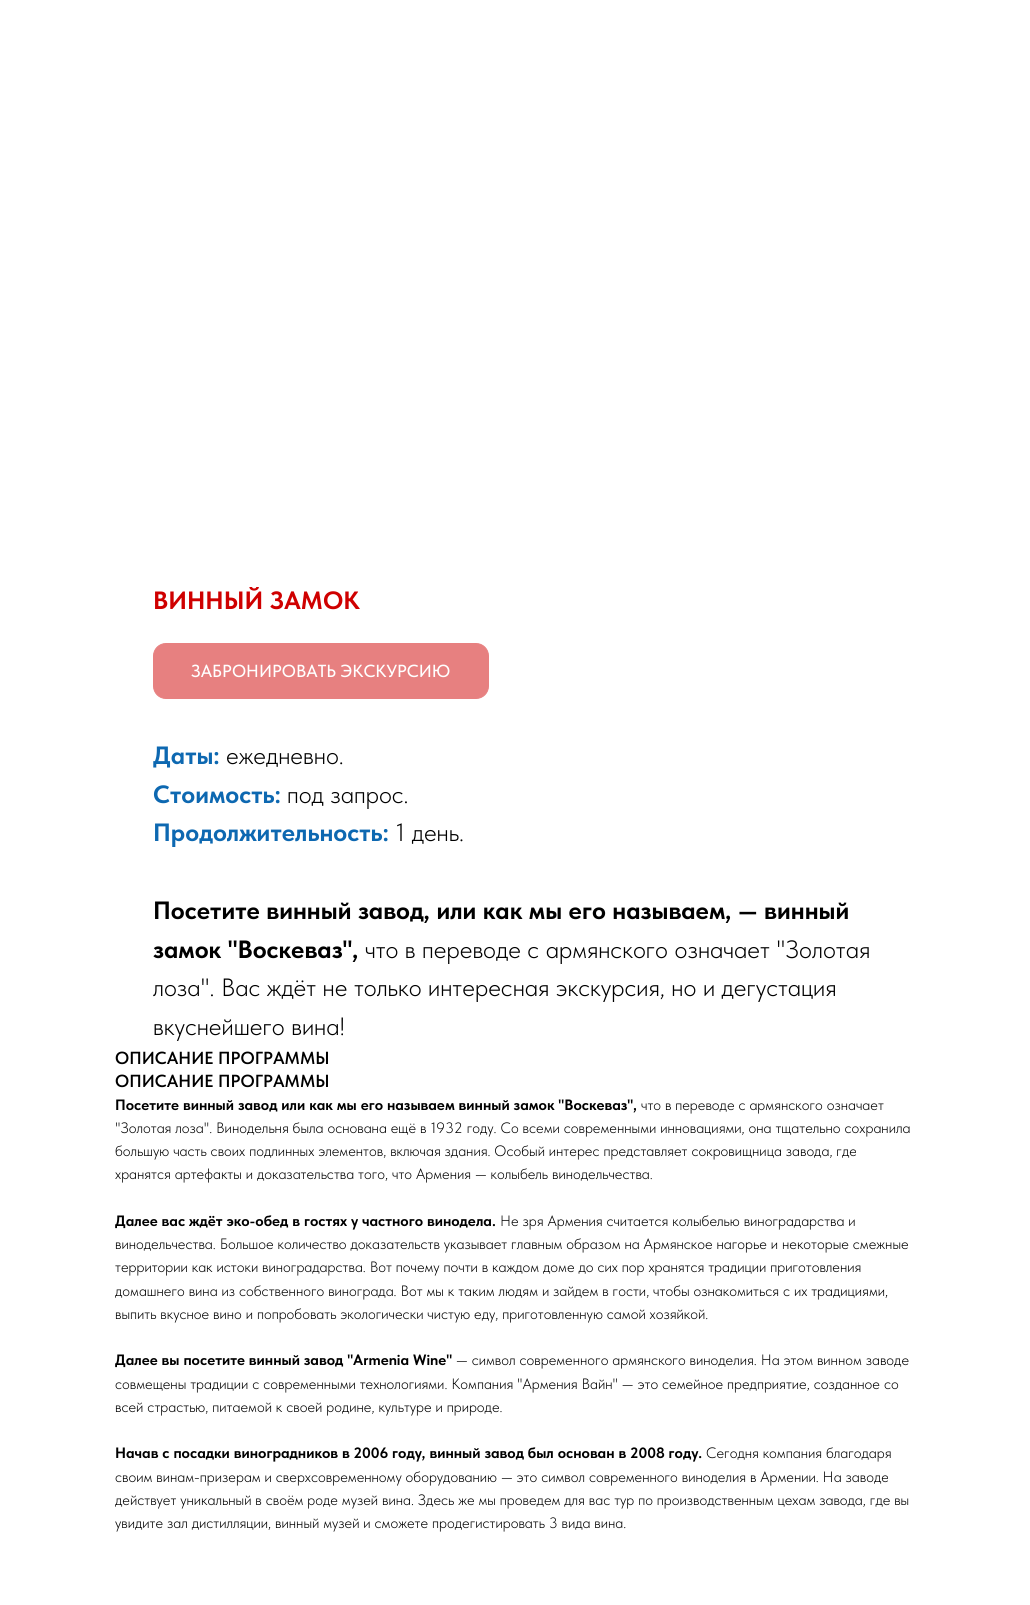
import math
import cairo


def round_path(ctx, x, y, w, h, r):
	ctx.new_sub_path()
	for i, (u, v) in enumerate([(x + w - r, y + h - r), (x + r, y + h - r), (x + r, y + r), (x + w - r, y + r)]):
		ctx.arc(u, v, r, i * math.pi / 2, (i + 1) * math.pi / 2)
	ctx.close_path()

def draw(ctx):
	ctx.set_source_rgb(1, 1, 1)
	ctx.paint()
	ctx.select_font_face('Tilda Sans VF', cairo.FONT_SLANT_NORMAL, cairo.FONT_WEIGHT_BOLD)
	ctx.set_font_size(25)
	ctx.set_source_rgb(0.812, 0, 0)
	ctx.move_to(153, 609)
	ctx.show_text('ВИННЫЙ ЗАМОК')
	ctx.set_source_rgb(0.906, 0.502, 0.502)
	round_path(ctx, 153.5, 643.5, 335, 55, 12.5)
	ctx.fill_preserve()
	ctx.set_line_width(1)
	ctx.stroke()
	ctx.select_font_face('Tilda Sans VF Medium')
	ctx.set_font_size(17.5)
	ctx.set_source_rgb(1, 1, 1)
	ctx.move_to(191, 677)
	ctx.show_text('ЗАБРОНИРОВАТЬ ЭКСКУРСИЮ')
	ctx.select_font_face('Tilda Sans VF', cairo.FONT_SLANT_NORMAL, cairo.FONT_WEIGHT_BOLD)
	ctx.set_font_size(25)
	ctx.set_source_rgb(0.051, 0.408, 0.694)
	ctx.move_to(153, 764)
	ctx.show_text('Даты:')
	ctx.select_font_face('Tilda Sans VF Light')
	ctx.set_source_rgb(0, 0, 0)
	ctx.move_to(226, 764)
	ctx.show_text('ежедневно.')
	ctx.select_font_face('Tilda Sans VF', cairo.FONT_SLANT_NORMAL, cairo.FONT_WEIGHT_BOLD)
	ctx.set_source_rgb(0.051, 0.408, 0.694)
	ctx.move_to(153, 803)
	ctx.show_text('Стоимость:')
	ctx.select_font_face('Tilda Sans VF Light')
	ctx.set_source_rgb(0, 0, 0)
	ctx.move_to(287, 803)
	ctx.show_text('под запрос.')
	ctx.select_font_face('Tilda Sans VF', cairo.FONT_SLANT_NORMAL, cairo.FONT_WEIGHT_BOLD)
	ctx.set_source_rgb(0.051, 0.408, 0.694)
	ctx.move_to(153, 841)
	ctx.show_text('Продолжительность:')
	ctx.select_font_face('Tilda Sans VF Light')
	ctx.set_source_rgb(0, 0, 0)
	ctx.move_to(395, 841)
	ctx.show_text('1 день.')
	ctx.select_font_face('Tilda Sans VF', cairo.FONT_SLANT_NORMAL, cairo.FONT_WEIGHT_BOLD)
	ctx.move_to(153, 919)
	ctx.show_text('Посетите винный завод, или как мы его называем, — винный')
	ctx.move_to(153, 958)
	ctx.show_text('замок "Воскеваз",')
	ctx.select_font_face('Tilda Sans VF Light')
	for x, y, s in [
		(365, 958, 'что в переводе с армянского означает "Золотая'),
		(153, 996, 'лоза". Вас ждёт не только интересная экскурсия, но и дегустация'),
		(153, 1035, 'вкуснейшего вина!'),
	]:
		ctx.move_to(x, y)
		ctx.show_text(s)
	ctx.select_font_face('Tilda Sans VF SemiBold')
	ctx.set_font_size(17.5)
	ctx.move_to(115, 1064)
	ctx.show_text('ОПИСАНИЕ ПРОГРАММЫ')
	ctx.move_to(115, 1087)
	ctx.show_text('ОПИСАНИЕ ПРОГРАММЫ')
	ctx.select_font_face('Tilda Sans VF', cairo.FONT_SLANT_NORMAL, cairo.FONT_WEIGHT_BOLD)
	ctx.set_font_size(15)
	ctx.move_to(115, 1110)
	ctx.show_text('Посетите винный завод или как мы его называем винный замок "Воскеваз",')
	ctx.select_font_face('Tilda Sans VF Light')
	for x, y, s in [
		(641, 1110, 'что в переводе с армянского означает'),
		(115, 1133, '"Золотая лоза". Винодельня была основана ещё в 1932 году. Со всеми современными инновациями, она тщательно сохранила'),
		(115, 1156, 'большую часть своих подлинных элементов, включая здания. Особый интерес представляет сокровищница завода, где'),
		(115, 1179, 'хранятся артефакты и доказательства того, что Армения — колыбель винодельчества.'),
	]:
		ctx.move_to(x, y)
		ctx.show_text(s)
	ctx.select_font_face('Tilda Sans VF', cairo.FONT_SLANT_NORMAL, cairo.FONT_WEIGHT_BOLD)
	ctx.move_to(115, 1226)
	ctx.show_text('Далее вас ждёт эко-обед в гостях у частного винодела.')
	ctx.select_font_face('Tilda Sans VF Light')
	for x, y, s in [
		(500, 1226, 'Не зря Армения считается колыбелью виноградарства и'),
		(115, 1249, 'винодельчества. Большое количество доказательств указывает главным образом на Армянское нагорье и некоторые смежные'),
		(115, 1272, 'территории как истоки виноградарства. Вот почему почти в каждом доме до сих пор хранятся традиции приготовления'),
		(115, 1296, 'домашнего вина из собственного винограда. Вот мы к таким людям и зайдем в гости, чтобы ознакомиться с их традициями,'),
		(115, 1319, 'выпить вкусное вино и попробовать экологически чистую еду, приготовленную самой хозяйкой.'),
	]:
		ctx.move_to(x, y)
		ctx.show_text(s)
	ctx.select_font_face('Tilda Sans VF', cairo.FONT_SLANT_NORMAL, cairo.FONT_WEIGHT_BOLD)
	ctx.move_to(115, 1365)
	ctx.show_text('Далее вы посетите винный завод "Armenia Wine"')
	ctx.select_font_face('Tilda Sans VF Light')
	for x, y, s in [
		(456, 1365, '— символ современного армянского виноделия. На этом винном заводе'),
		(115, 1389, 'совмещены традиции с современными технологиями. Компания "Армения Вайн" — это семейное предприятие, созданное со'),
		(115, 1412, 'всей страстью, питаемой к своей родине, культуре и природе.'),
	]:
		ctx.move_to(x, y)
		ctx.show_text(s)
	ctx.select_font_face('Tilda Sans VF', cairo.FONT_SLANT_NORMAL, cairo.FONT_WEIGHT_BOLD)
	ctx.move_to(115, 1458)
	ctx.show_text('Начав с посадки виноградников в 2006 году, винный завод был основан в 2008 году.')
	ctx.select_font_face('Tilda Sans VF Light')
	for x, y, s in [
		(706, 1458, 'Сегодня компания благодаря'),
		(115, 1482, 'своим винам-призерам и сверхсовременному оборудованию — это символ современного виноделия в Армении. На заводе'),
		(115, 1505, 'действует уникальный в своём роде музей вина. Здесь же мы проведем для вас тур по производственным цехам завода, где вы'),
		(115, 1528, 'увидите зал дистилляции, винный музей и сможете продегистировать 3 вида вина.'),
	]:
		ctx.move_to(x, y)
		ctx.show_text(s)


surface = cairo.ImageSurface(cairo.FORMAT_RGB24, 1030, 1605)
ctx = cairo.Context(surface)
options = cairo.FontOptions()
options.set_hint_metrics(cairo.HINT_METRICS_OFF)
options.set_hint_style(cairo.HINT_STYLE_NONE)
ctx.set_font_options(options)
ctx.set_miter_limit(4)
draw(ctx)
surface.write_to_png('image.png')
